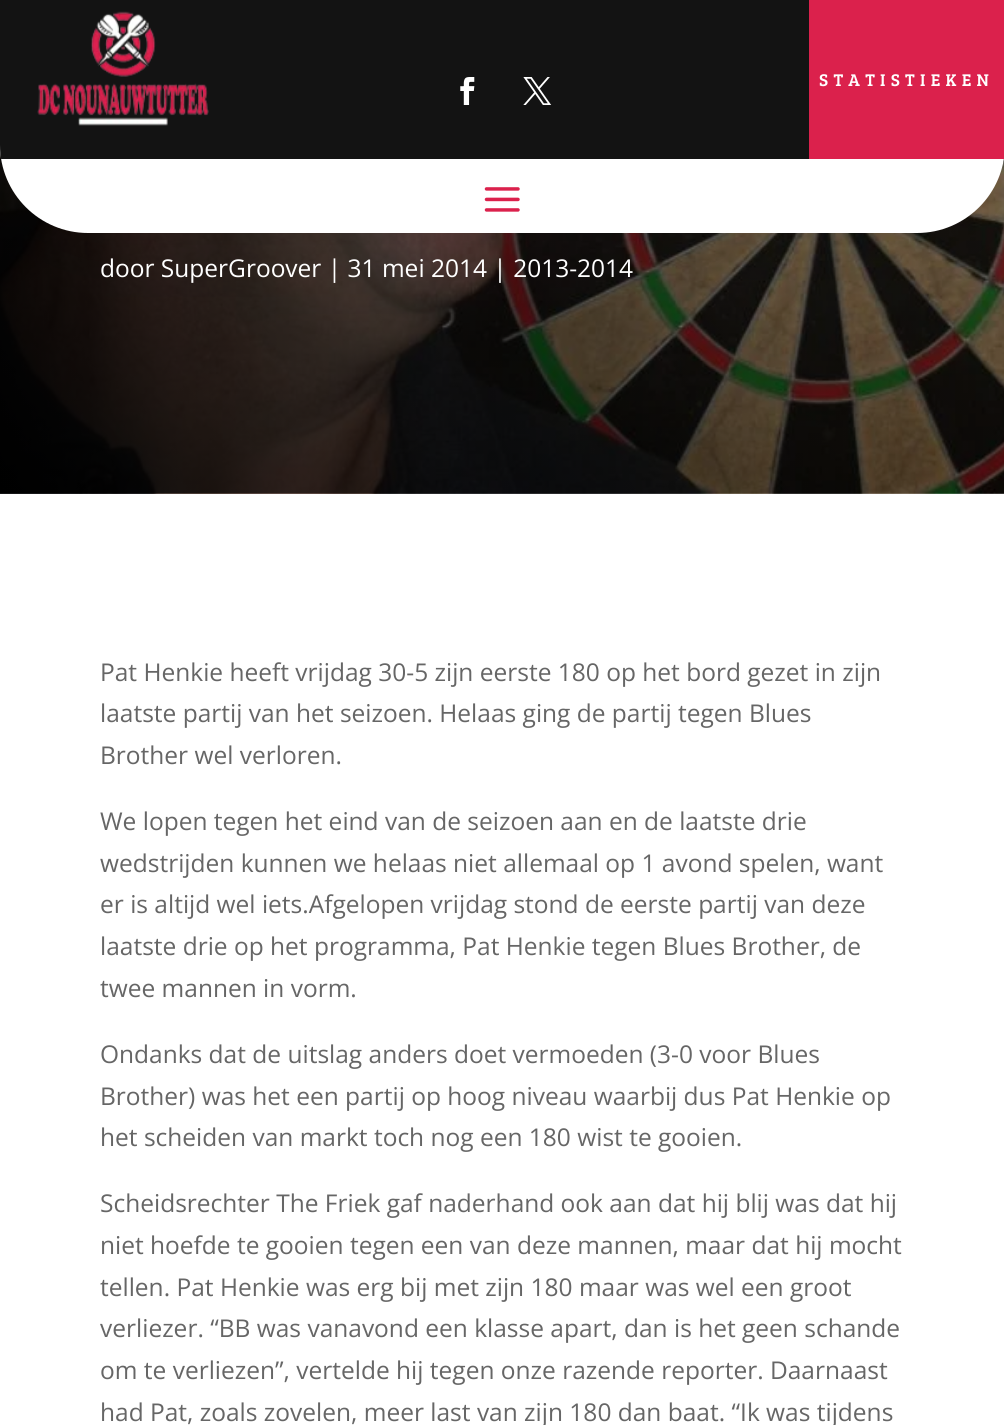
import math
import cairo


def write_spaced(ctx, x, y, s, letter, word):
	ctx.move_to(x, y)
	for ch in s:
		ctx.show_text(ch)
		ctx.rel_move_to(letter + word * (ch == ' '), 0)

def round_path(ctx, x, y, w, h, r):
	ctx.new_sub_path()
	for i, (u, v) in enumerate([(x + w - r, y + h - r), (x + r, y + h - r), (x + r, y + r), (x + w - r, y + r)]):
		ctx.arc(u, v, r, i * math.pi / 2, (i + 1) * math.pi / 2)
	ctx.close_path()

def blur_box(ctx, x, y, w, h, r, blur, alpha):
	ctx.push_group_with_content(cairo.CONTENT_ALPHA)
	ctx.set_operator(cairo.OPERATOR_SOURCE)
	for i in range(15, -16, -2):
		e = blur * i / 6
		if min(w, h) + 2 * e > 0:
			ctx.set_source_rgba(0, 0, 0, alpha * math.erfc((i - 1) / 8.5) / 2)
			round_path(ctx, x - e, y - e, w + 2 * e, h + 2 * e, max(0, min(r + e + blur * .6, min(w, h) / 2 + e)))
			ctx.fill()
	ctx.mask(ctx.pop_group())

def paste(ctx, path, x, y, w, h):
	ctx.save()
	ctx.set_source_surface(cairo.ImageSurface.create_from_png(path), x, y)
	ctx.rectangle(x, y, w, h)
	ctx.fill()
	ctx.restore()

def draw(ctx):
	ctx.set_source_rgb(1, 1, 1)
	ctx.paint()
	paste(ctx, 'media/5.png', 0, 145, 1004, 349)
	ctx.set_source_rgb(0, 0, 0)
	blur_box(ctx, 0, 4, 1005, 232, 88, 52.5, 0.13)
	ctx.set_source_rgb(1, 1, 1)
	ctx.new_path()
	ctx.move_to(0, 0)
	ctx.line_to(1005, 0)
	ctx.line_to(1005, 145)
	ctx.curve_to(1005, 193.5, 965.5, 233, 917, 233)
	ctx.line_to(88, 233)
	ctx.curve_to(39.5, 233, 0, 193.5, 0, 145)
	ctx.close_path()
	ctx.fill()
	ctx.save()
	ctx.new_path()
	ctx.move_to(0, 0)
	ctx.line_to(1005, 0)
	ctx.line_to(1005, 145)
	ctx.curve_to(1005, 193.5, 965.5, 233, 917, 233)
	ctx.line_to(88, 233)
	ctx.curve_to(39.5, 233, 0, 193.5, 0, 145)
	ctx.close_path()
	ctx.clip()
	ctx.set_source_rgb(0.078, 0.078, 0.078)
	ctx.rectangle(0, 0, 1004, 159)
	ctx.fill()
	ctx.restore()
	paste(ctx, 'media/1.png', 37, 11, 172, 115)
	paste(ctx, 'media/2.png', 460, 77, 15, 28)
	paste(ctx, 'media/3.png', 523, 77, 29, 28)
	ctx.set_source_rgb(0.859, 0.129, 0.298)
	ctx.rectangle(809, 0, 195, 159)
	ctx.fill()
	ctx.select_font_face('Bree Serif')
	ctx.set_font_size(17.5)
	ctx.set_source_rgb(1, 1, 1)
	write_spaced(ctx, 819, 86, 'STATISTIEKEN', 5.25, 0)
	paste(ctx, 'media/4.png', 484, 187, 36, 25)
	ctx.select_font_face('Open Sans')
	ctx.set_font_size(24.5)
	ctx.move_to(100, 277)
	ctx.show_text('door SuperGroover | 31 mei 2014 | 2013-2014')
	ctx.set_source_rgb(0.4, 0.4, 0.4)
	for x, y, s in [
		(100, 681, 'Pat Henkie heeft vrijdag 30-5 zijn eerste 180 op het bord gezet in zijn'),
		(100, 722, 'laatste partij van het seizoen. Helaas ging de partij tegen Blues'),
		(100, 764, 'Brother wel verloren.'),
		(100, 830, 'We lopen tegen het eind van de seizoen aan en de laatste drie'),
		(100, 872, 'wedstrijden kunnen we helaas niet allemaal op 1 avond spelen, want'),
		(100, 913, 'er is altijd wel iets.Afgelopen vrijdag stond de eerste partij van deze'),
		(100, 955, 'laatste drie op het programma, Pat Henkie tegen Blues Brother, de'),
		(100, 997, 'twee mannen in vorm.'),
		(100, 1063, 'Ondanks dat de uitslag anders doet vermoeden (3-0 voor Blues'),
		(100, 1105, 'Brother) was het een partij op hoog niveau waarbij dus Pat Henkie op'),
		(100, 1146, 'het scheiden van markt toch nog een 180 wist te gooien.'),
		(100, 1212, 'Scheidsrechter The Friek gaf naderhand ook aan dat hij blij was dat hij'),
		(100, 1254, 'niet hoefde te gooien tegen een van deze mannen, maar dat hij mocht'),
		(100, 1296, 'tellen. Pat Henkie was erg bij met zijn 180 maar was wel een groot'),
		(100, 1337, 'verliezer. “BB was vanavond een klasse apart, dan is het geen schande'),
		(100, 1379, 'om te verliezen”, vertelde hij tegen onze razende reporter. Daarnaast'),
		(100, 1421, 'had Pat, zoals zovelen, meer last van zijn 180 dan baat. “Ik was tijdens'),
	]:
		ctx.move_to(x, y)
		ctx.show_text(s)


surface = cairo.ImageSurface(cairo.FORMAT_RGB24, 1004, 1425)
ctx = cairo.Context(surface)
options = cairo.FontOptions()
options.set_hint_metrics(cairo.HINT_METRICS_OFF)
options.set_hint_style(cairo.HINT_STYLE_NONE)
ctx.set_font_options(options)
ctx.set_miter_limit(4)
draw(ctx)
surface.write_to_png('image.png')
